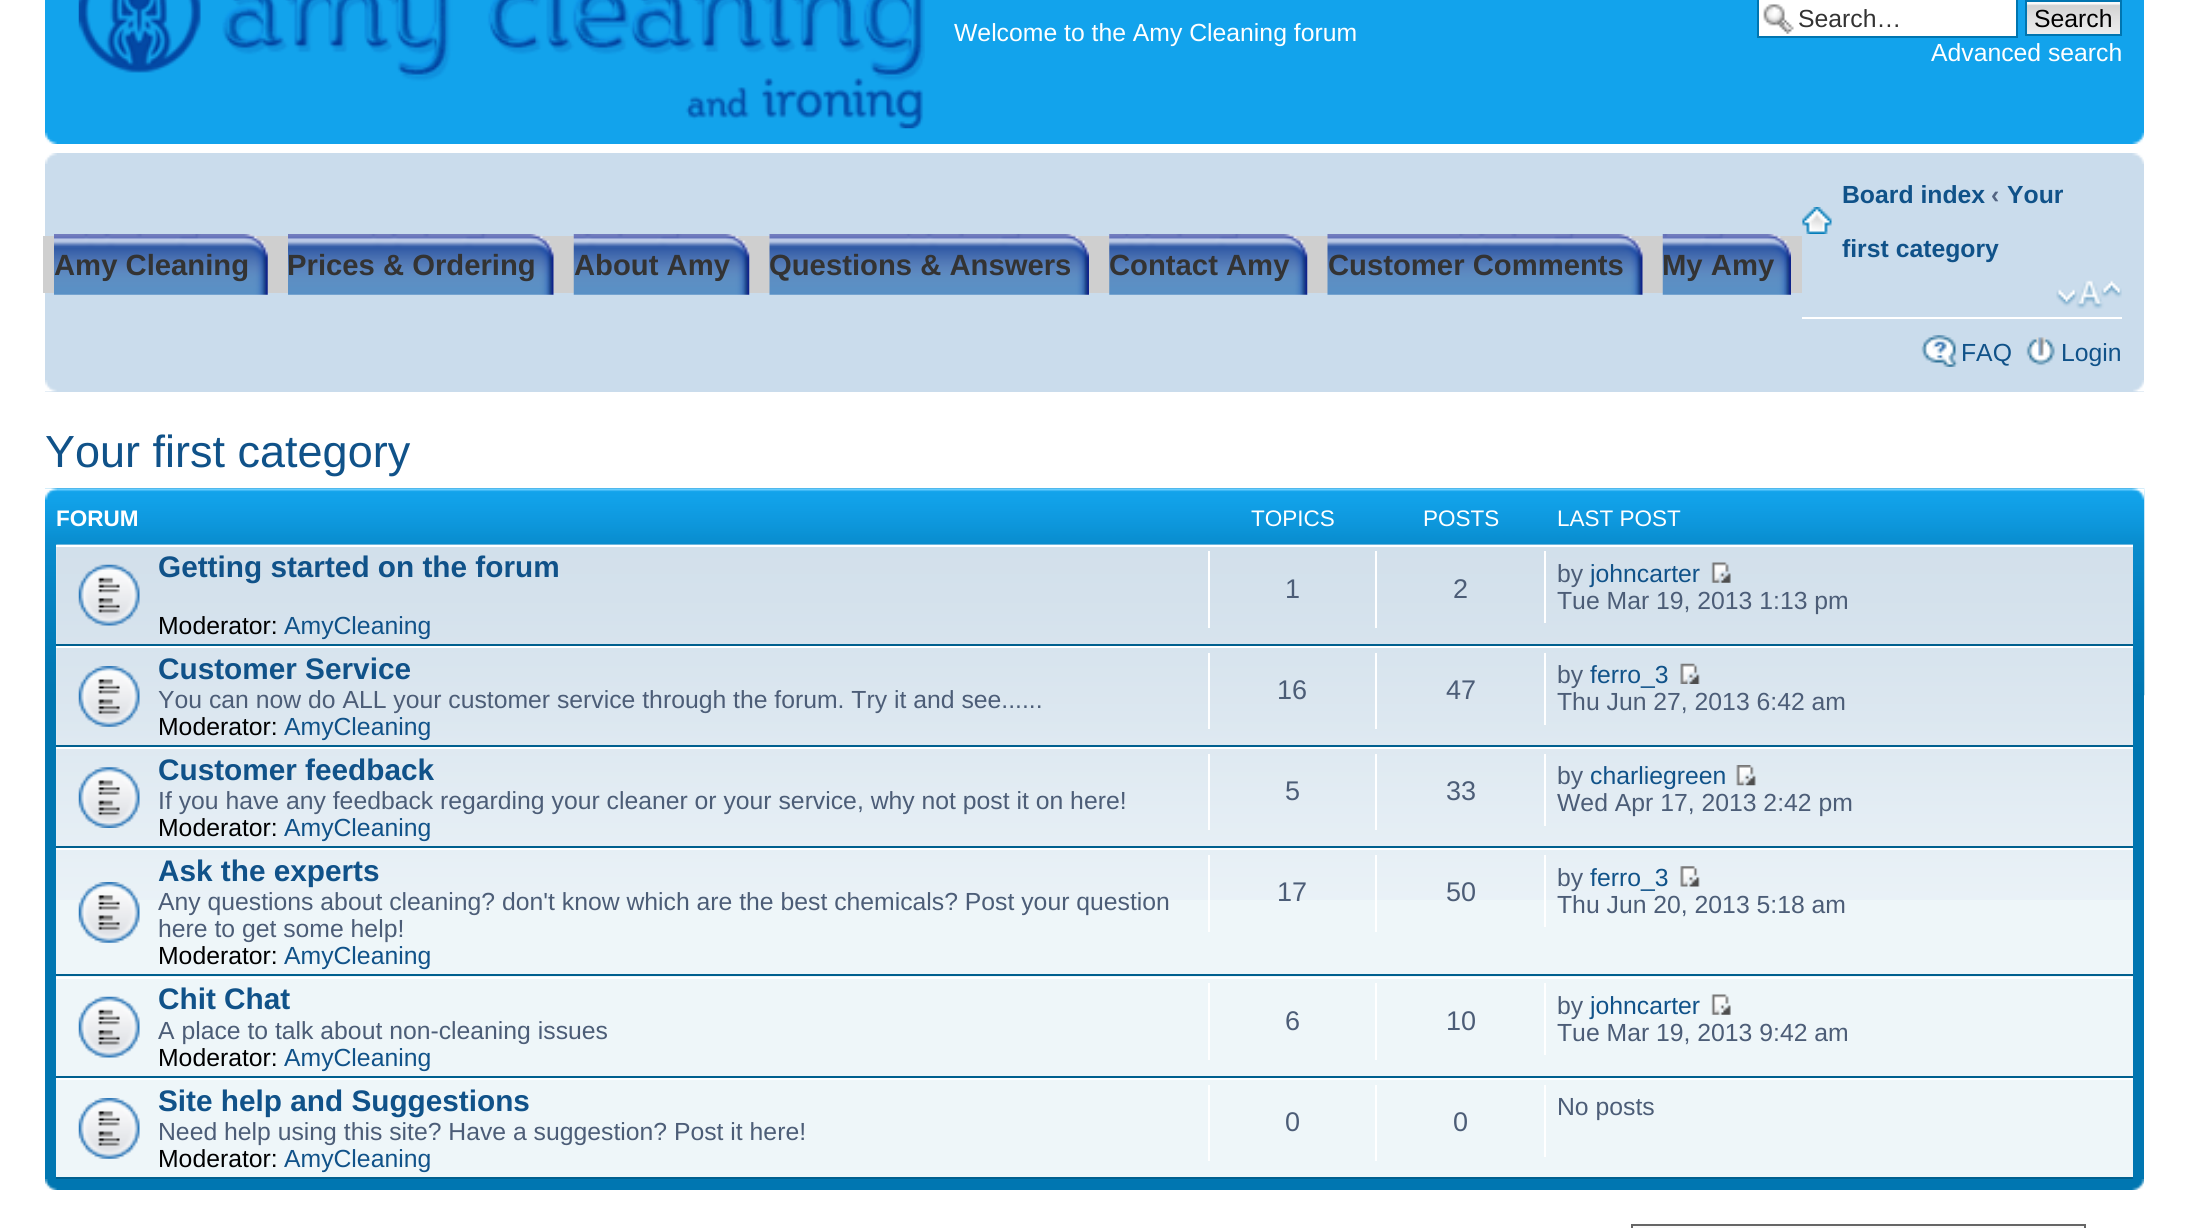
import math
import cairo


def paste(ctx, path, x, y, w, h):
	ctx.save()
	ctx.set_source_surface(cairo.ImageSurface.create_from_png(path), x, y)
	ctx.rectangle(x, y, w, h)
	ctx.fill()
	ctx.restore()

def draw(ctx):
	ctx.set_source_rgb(1, 1, 1)
	ctx.paint()
	ctx.set_source_rgb(0.071, 0.639, 0.922)
	ctx.rectangle(45, 0, 2099, 144)
	ctx.fill()
	paste(ctx, 'media/1.png', 78, 0, 847, 129)
	ctx.select_font_face('Liberation Sans')
	ctx.set_font_size(24.75)
	ctx.set_source_rgb(1, 1, 1)
	ctx.move_to(954, 41)
	ctx.show_text('Welcome to the Amy Cleaning forum')
	ctx.rectangle(1759, 0, 257, 36)
	ctx.fill()
	paste(ctx, 'media/2.png', 1763, 4, 31, 30)
	ctx.rectangle(1758, -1, 259, 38)
	ctx.set_source_rgb(0, 0.459, 0.69)
	ctx.stroke()
	ctx.set_source_rgb(0.2, 0.2, 0.2)
	ctx.move_to(1798, 27)
	ctx.show_text('Search…')
	ctx.set_source_rgb(0.98, 0.98, 0.98)
	ctx.rectangle(2027, 2, 93, 2)
	ctx.fill()
	paste(ctx, 'media/3.png', 2027, 4, 93, 30)
	ctx.rectangle(2026, 1, 95, 34)
	ctx.set_source_rgb(0, 0.459, 0.69)
	ctx.stroke()
	ctx.set_source_rgb(0, 0, 0)
	ctx.move_to(2034, 27)
	ctx.show_text('Search')
	ctx.set_source_rgb(1, 1, 1)
	ctx.move_to(1931, 61)
	ctx.show_text('Advanced search')
	paste(ctx, 'media/4.png', 45, 132, 12, 12)
	paste(ctx, 'media/5.png', 2132, 132, 12, 12)
	ctx.set_source_rgb(0.792, 0.863, 0.922)
	ctx.rectangle(45, 153, 2099, 239)
	ctx.fill()
	ctx.set_source_rgb(0.812, 0.812, 0.812)
	ctx.rectangle(43, 236, 1759, 57)
	ctx.fill()
	paste(ctx, 'media/6.png', 54, 234, 214, 61)
	ctx.select_font_face('Liberation Sans', cairo.FONT_SLANT_NORMAL, cairo.FONT_WEIGHT_BOLD)
	ctx.set_font_size(29.25)
	ctx.set_source_rgb(0.2, 0.2, 0.2)
	ctx.move_to(54, 275)
	ctx.show_text('Amy Cleaning')
	paste(ctx, 'media/7.png', 288, 234, 266, 61)
	ctx.move_to(287, 275)
	ctx.show_text('Prices & Ordering')
	paste(ctx, 'media/8.png', 573, 234, 177, 61)
	ctx.move_to(574, 275)
	ctx.show_text('About Amy')
	paste(ctx, 'media/9.png', 769, 234, 320, 61)
	ctx.move_to(769, 275)
	ctx.show_text('Questions & Answers')
	paste(ctx, 'media/10.png', 1109, 234, 199, 61)
	ctx.move_to(1109, 275)
	ctx.show_text('Contact Amy')
	paste(ctx, 'media/11.png', 1327, 234, 316, 61)
	ctx.move_to(1328, 275)
	ctx.show_text('Customer Comments')
	paste(ctx, 'media/12.png', 1662, 234, 129, 61)
	ctx.move_to(1662, 275)
	ctx.show_text('My Amy')
	paste(ctx, 'media/13.png', 45, 153, 12, 11)
	paste(ctx, 'media/14.png', 2132, 153, 12, 11)
	ctx.set_source_rgb(1, 1, 1)
	ctx.rectangle(1802, 317, 320, 2)
	ctx.fill()
	paste(ctx, 'media/15.png', 1802, 207, 30, 27)
	ctx.set_font_size(24.75)
	ctx.set_source_rgb(0.063, 0.322, 0.537)
	ctx.move_to(1842, 203)
	ctx.show_text('Board index')
	ctx.set_source_rgb(0.325, 0.392, 0.51)
	ctx.move_to(1991, 203)
	ctx.show_text('‹')
	ctx.set_source_rgb(0.063, 0.322, 0.537)
	ctx.move_to(2007, 203)
	ctx.show_text('Your')
	ctx.move_to(1842, 257)
	ctx.show_text('first category')
	paste(ctx, 'media/16.png', 2056, 280, 66, 29)
	paste(ctx, 'media/17.png', 1921, 335, 37, 32)
	ctx.select_font_face('Liberation Sans')
	ctx.move_to(1961, 361)
	ctx.show_text('FAQ')
	paste(ctx, 'media/18.png', 2026, 337, 29, 29)
	ctx.move_to(2061, 361)
	ctx.show_text('Login')
	paste(ctx, 'media/19.png', 45, 380, 12, 12)
	paste(ctx, 'media/20.png', 2133, 380, 11, 12)
	ctx.set_font_size(45)
	ctx.move_to(45, 467)
	ctx.show_text('Your first category')
	ctx.set_source_rgb(0, 0.463, 0.694)
	ctx.rectangle(45, 488, 2099, 702)
	ctx.fill()
	paste(ctx, 'media/21.png', 45, 488, 2100, 208)
	paste(ctx, 'media/22.png', 45, 488, 12, 12)
	paste(ctx, 'media/23.png', 2132, 488, 13, 12)
	ctx.select_font_face('Liberation Sans', cairo.FONT_SLANT_NORMAL, cairo.FONT_WEIGHT_BOLD)
	ctx.set_font_size(22.5)
	ctx.set_source_rgb(1, 1, 1)
	ctx.move_to(56, 526)
	ctx.show_text('FORUM')
	ctx.select_font_face('Liberation Sans')
	for x, y, s in [
		(1251, 526, 'TOPICS'),
		(1423, 526, 'POSTS'),
		(1557, 526, 'LAST POST'),
	]:
		ctx.move_to(x, y)
		ctx.show_text(s)
	ctx.set_source_rgb(0.933, 0.961, 0.976)
	ctx.rectangle(56, 547, 2077, 630)
	ctx.fill()
	paste(ctx, 'media/24.png', 56, 544, 2077, 356)
	ctx.set_source_rgb(1, 1, 1)
	ctx.rectangle(56, 545, 2077, 2)
	ctx.fill()
	ctx.set_source_rgb(0, 0.376, 0.561)
	ctx.rectangle(56, 644, 2077, 2)
	ctx.fill()
	paste(ctx, 'media/25.png', 78, 564, 62, 62)
	ctx.select_font_face('Liberation Sans', cairo.FONT_SLANT_NORMAL, cairo.FONT_WEIGHT_BOLD)
	ctx.set_font_size(29.75)
	ctx.set_source_rgb(0.063, 0.322, 0.537)
	ctx.move_to(158, 577)
	ctx.show_text('Getting started on the forum')
	ctx.select_font_face('Liberation Sans')
	ctx.set_font_size(24.75)
	ctx.set_source_rgb(0, 0, 0)
	ctx.move_to(158, 634)
	ctx.show_text('Moderator:')
	ctx.set_source_rgb(0.063, 0.322, 0.537)
	ctx.move_to(284, 634)
	ctx.show_text('AmyCleaning')
	ctx.set_source_rgb(1, 1, 1)
	ctx.rectangle(1208, 551, 2, 77)
	ctx.fill()
	ctx.set_font_size(27)
	ctx.set_source_rgb(0.298, 0.365, 0.467)
	ctx.move_to(1285, 598)
	ctx.show_text('1')
	ctx.set_source_rgb(1, 1, 1)
	ctx.rectangle(1375, 551, 2, 77)
	ctx.fill()
	ctx.set_source_rgb(0.298, 0.365, 0.467)
	ctx.move_to(1453, 598)
	ctx.show_text('2')
	ctx.set_source_rgb(1, 1, 1)
	ctx.rectangle(1544, 551, 2, 72)
	ctx.fill()
	ctx.set_font_size(24.75)
	ctx.set_source_rgb(0.298, 0.365, 0.467)
	ctx.move_to(1557, 582)
	ctx.show_text('by')
	ctx.set_source_rgb(0.063, 0.322, 0.537)
	ctx.move_to(1590, 582)
	ctx.show_text('johncarter')
	paste(ctx, 'media/26.png', 1711, 562, 20, 21)
	ctx.set_source_rgb(0.298, 0.365, 0.467)
	ctx.move_to(1557, 609)
	ctx.show_text('Tue Mar 19, 2013 1:13 pm')
	ctx.set_source_rgb(1, 1, 1)
	ctx.rectangle(56, 646, 2077, 2)
	ctx.fill()
	ctx.set_source_rgb(0, 0.376, 0.561)
	ctx.rectangle(56, 745, 2077, 2)
	ctx.fill()
	paste(ctx, 'media/27.png', 78, 666, 62, 61)
	ctx.select_font_face('Liberation Sans', cairo.FONT_SLANT_NORMAL, cairo.FONT_WEIGHT_BOLD)
	ctx.set_font_size(29.75)
	ctx.set_source_rgb(0.063, 0.322, 0.537)
	ctx.move_to(158, 679)
	ctx.show_text('Customer Service')
	ctx.select_font_face('Liberation Sans')
	ctx.set_font_size(24.75)
	ctx.set_source_rgb(0.298, 0.365, 0.467)
	ctx.move_to(158, 708)
	ctx.show_text('You can now do ALL your customer service through the forum. Try it and see......')
	ctx.set_source_rgb(0, 0, 0)
	ctx.move_to(158, 735)
	ctx.show_text('Moderator:')
	ctx.set_source_rgb(0.063, 0.322, 0.537)
	ctx.move_to(284, 735)
	ctx.show_text('AmyCleaning')
	ctx.set_source_rgb(1, 1, 1)
	ctx.rectangle(1208, 653, 2, 76)
	ctx.fill()
	ctx.set_font_size(27)
	ctx.set_source_rgb(0.298, 0.365, 0.467)
	ctx.move_to(1277, 699)
	ctx.show_text('16')
	ctx.set_source_rgb(1, 1, 1)
	ctx.rectangle(1375, 653, 2, 76)
	ctx.fill()
	ctx.set_source_rgb(0.298, 0.365, 0.467)
	ctx.move_to(1446, 699)
	ctx.show_text('47')
	ctx.set_source_rgb(1, 1, 1)
	ctx.rectangle(1544, 653, 2, 72)
	ctx.fill()
	ctx.set_font_size(24.75)
	ctx.set_source_rgb(0.298, 0.365, 0.467)
	ctx.move_to(1557, 683)
	ctx.show_text('by')
	ctx.set_source_rgb(0.063, 0.322, 0.537)
	ctx.move_to(1590, 683)
	ctx.show_text('ferro_3')
	paste(ctx, 'media/28.png', 1680, 663, 20, 21)
	ctx.set_source_rgb(0.298, 0.365, 0.467)
	ctx.move_to(1557, 710)
	ctx.show_text('Thu Jun 27, 2013 6:42 am')
	ctx.set_source_rgb(1, 1, 1)
	ctx.rectangle(56, 747, 2077, 2)
	ctx.fill()
	ctx.set_source_rgb(0, 0.376, 0.561)
	ctx.rectangle(56, 846, 2077, 2)
	ctx.fill()
	paste(ctx, 'media/29.png', 78, 767, 62, 61)
	ctx.select_font_face('Liberation Sans', cairo.FONT_SLANT_NORMAL, cairo.FONT_WEIGHT_BOLD)
	ctx.set_font_size(29.75)
	ctx.set_source_rgb(0.063, 0.322, 0.537)
	ctx.move_to(158, 780)
	ctx.show_text('Customer feedback')
	ctx.select_font_face('Liberation Sans')
	ctx.set_font_size(24.75)
	ctx.set_source_rgb(0.298, 0.365, 0.467)
	ctx.move_to(158, 809)
	ctx.show_text('If you have any feedback regarding your cleaner or your service, why not post it on here!')
	ctx.set_source_rgb(0, 0, 0)
	ctx.move_to(158, 836)
	ctx.show_text('Moderator:')
	ctx.set_source_rgb(0.063, 0.322, 0.537)
	ctx.move_to(284, 836)
	ctx.show_text('AmyCleaning')
	ctx.set_source_rgb(1, 1, 1)
	ctx.rectangle(1208, 754, 2, 76)
	ctx.fill()
	ctx.set_font_size(27)
	ctx.set_source_rgb(0.298, 0.365, 0.467)
	ctx.move_to(1285, 800)
	ctx.show_text('5')
	ctx.set_source_rgb(1, 1, 1)
	ctx.rectangle(1375, 754, 2, 76)
	ctx.fill()
	ctx.set_source_rgb(0.298, 0.365, 0.467)
	ctx.move_to(1446, 800)
	ctx.show_text('33')
	ctx.set_source_rgb(1, 1, 1)
	ctx.rectangle(1544, 754, 2, 72)
	ctx.fill()
	ctx.set_font_size(24.75)
	ctx.set_source_rgb(0.298, 0.365, 0.467)
	ctx.move_to(1557, 784)
	ctx.show_text('by')
	ctx.set_source_rgb(0.063, 0.322, 0.537)
	ctx.move_to(1590, 784)
	ctx.show_text('charliegreen')
	paste(ctx, 'media/30.png', 1736, 765, 20, 21)
	ctx.set_source_rgb(0.298, 0.365, 0.467)
	ctx.move_to(1557, 811)
	ctx.show_text('Wed Apr 17, 2013 2:42 pm')
	ctx.set_source_rgb(1, 1, 1)
	ctx.rectangle(56, 848, 2077, 2)
	ctx.fill()
	ctx.set_source_rgb(0, 0.376, 0.561)
	ctx.rectangle(56, 974, 2077, 2)
	ctx.fill()
	paste(ctx, 'media/31.png', 78, 882, 62, 61)
	ctx.select_font_face('Liberation Sans', cairo.FONT_SLANT_NORMAL, cairo.FONT_WEIGHT_BOLD)
	ctx.set_font_size(29.75)
	ctx.set_source_rgb(0.063, 0.322, 0.537)
	ctx.move_to(158, 881)
	ctx.show_text('Ask the experts')
	ctx.select_font_face('Liberation Sans')
	ctx.set_font_size(24.75)
	ctx.set_source_rgb(0.298, 0.365, 0.467)
	ctx.move_to(158, 910)
	ctx.show_text('Any questions about cleaning? don\'t know which are the best chemicals? Post your question')
	ctx.move_to(158, 937)
	ctx.show_text('here to get some help!')
	ctx.set_source_rgb(0, 0, 0)
	ctx.move_to(158, 964)
	ctx.show_text('Moderator:')
	ctx.set_source_rgb(0.063, 0.322, 0.537)
	ctx.move_to(284, 964)
	ctx.show_text('AmyCleaning')
	ctx.set_source_rgb(1, 1, 1)
	ctx.rectangle(1208, 855, 2, 77)
	ctx.fill()
	ctx.set_font_size(27)
	ctx.set_source_rgb(0.298, 0.365, 0.467)
	ctx.move_to(1277, 901)
	ctx.show_text('17')
	ctx.set_source_rgb(1, 1, 1)
	ctx.rectangle(1375, 855, 2, 77)
	ctx.fill()
	ctx.set_source_rgb(0.298, 0.365, 0.467)
	ctx.move_to(1446, 901)
	ctx.show_text('50')
	ctx.set_source_rgb(1, 1, 1)
	ctx.rectangle(1544, 855, 2, 72)
	ctx.fill()
	ctx.set_font_size(24.75)
	ctx.set_source_rgb(0.298, 0.365, 0.467)
	ctx.move_to(1557, 886)
	ctx.show_text('by')
	ctx.set_source_rgb(0.063, 0.322, 0.537)
	ctx.move_to(1590, 886)
	ctx.show_text('ferro_3')
	paste(ctx, 'media/32.png', 1680, 866, 20, 21)
	ctx.set_source_rgb(0.298, 0.365, 0.467)
	ctx.move_to(1557, 913)
	ctx.show_text('Thu Jun 20, 2013 5:18 am')
	ctx.set_source_rgb(1, 1, 1)
	ctx.rectangle(56, 977, 2077, 2)
	ctx.fill()
	ctx.set_source_rgb(0, 0.376, 0.561)
	ctx.rectangle(56, 1076, 2077, 2)
	ctx.fill()
	paste(ctx, 'media/33.png', 78, 996, 62, 62)
	ctx.select_font_face('Liberation Sans', cairo.FONT_SLANT_NORMAL, cairo.FONT_WEIGHT_BOLD)
	ctx.set_font_size(29.75)
	ctx.set_source_rgb(0.063, 0.322, 0.537)
	ctx.move_to(158, 1009)
	ctx.show_text('Chit Chat')
	ctx.select_font_face('Liberation Sans')
	ctx.set_font_size(24.75)
	ctx.set_source_rgb(0.298, 0.365, 0.467)
	ctx.move_to(158, 1039)
	ctx.show_text('A place to talk about non-cleaning issues')
	ctx.set_source_rgb(0, 0, 0)
	ctx.move_to(158, 1066)
	ctx.show_text('Moderator:')
	ctx.set_source_rgb(0.063, 0.322, 0.537)
	ctx.move_to(284, 1066)
	ctx.show_text('AmyCleaning')
	ctx.set_source_rgb(1, 1, 1)
	ctx.rectangle(1208, 983, 2, 77)
	ctx.fill()
	ctx.set_font_size(27)
	ctx.set_source_rgb(0.298, 0.365, 0.467)
	ctx.move_to(1285, 1030)
	ctx.show_text('6')
	ctx.set_source_rgb(1, 1, 1)
	ctx.rectangle(1375, 983, 2, 77)
	ctx.fill()
	ctx.set_source_rgb(0.298, 0.365, 0.467)
	ctx.move_to(1446, 1030)
	ctx.show_text('10')
	ctx.set_source_rgb(1, 1, 1)
	ctx.rectangle(1544, 983, 2, 72)
	ctx.fill()
	ctx.set_font_size(24.75)
	ctx.set_source_rgb(0.298, 0.365, 0.467)
	ctx.move_to(1557, 1014)
	ctx.show_text('by')
	ctx.set_source_rgb(0.063, 0.322, 0.537)
	ctx.move_to(1590, 1014)
	ctx.show_text('johncarter')
	paste(ctx, 'media/34.png', 1711, 994, 20, 21)
	ctx.set_source_rgb(0.298, 0.365, 0.467)
	ctx.move_to(1557, 1041)
	ctx.show_text('Tue Mar 19, 2013 9:42 am')
	ctx.set_source_rgb(1, 1, 1)
	ctx.rectangle(56, 1078, 2077, 2)
	ctx.fill()
	ctx.set_source_rgb(0, 0.376, 0.561)
	ctx.rectangle(56, 1177, 2077, 2)
	ctx.fill()
	paste(ctx, 'media/35.png', 78, 1098, 62, 61)
	ctx.select_font_face('Liberation Sans', cairo.FONT_SLANT_NORMAL, cairo.FONT_WEIGHT_BOLD)
	ctx.set_font_size(29.75)
	ctx.set_source_rgb(0.063, 0.322, 0.537)
	ctx.move_to(158, 1111)
	ctx.show_text('Site help and Suggestions')
	ctx.select_font_face('Liberation Sans')
	ctx.set_font_size(24.75)
	ctx.set_source_rgb(0.298, 0.365, 0.467)
	ctx.move_to(158, 1140)
	ctx.show_text('Need help using this site? Have a suggestion? Post it here!')
	ctx.set_source_rgb(0, 0, 0)
	ctx.move_to(158, 1167)
	ctx.show_text('Moderator:')
	ctx.set_source_rgb(0.063, 0.322, 0.537)
	ctx.move_to(284, 1167)
	ctx.show_text('AmyCleaning')
	ctx.set_source_rgb(1, 1, 1)
	ctx.rectangle(1208, 1085, 2, 76)
	ctx.fill()
	ctx.set_font_size(27)
	ctx.set_source_rgb(0.298, 0.365, 0.467)
	ctx.move_to(1285, 1131)
	ctx.show_text('0')
	ctx.set_source_rgb(1, 1, 1)
	ctx.rectangle(1375, 1085, 2, 76)
	ctx.fill()
	ctx.set_source_rgb(0.298, 0.365, 0.467)
	ctx.move_to(1453, 1131)
	ctx.show_text('0')
	ctx.set_source_rgb(1, 1, 1)
	ctx.rectangle(1544, 1085, 2, 72)
	ctx.fill()
	ctx.set_font_size(24.75)
	ctx.set_source_rgb(0.298, 0.365, 0.467)
	ctx.move_to(1557, 1115)
	ctx.show_text('No posts')
	paste(ctx, 'media/36.png', 45, 1179, 12, 11)
	paste(ctx, 'media/37.png', 2132, 1179, 12, 11)
	ctx.set_source_rgb(0.98, 0.98, 0.98)
	ctx.rectangle(1632, 1225, 453, 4)
	ctx.fill_preserve()
	ctx.set_source_rgb(0.4, 0.4, 0.4)
	ctx.stroke()


surface = cairo.ImageSurface(cairo.FORMAT_RGB24, 2189, 1228)
ctx = cairo.Context(surface)
options = cairo.FontOptions()
options.set_hint_metrics(cairo.HINT_METRICS_OFF)
options.set_hint_style(cairo.HINT_STYLE_NONE)
ctx.set_font_options(options)
ctx.set_miter_limit(4)
draw(ctx)
surface.write_to_png('image.png')
